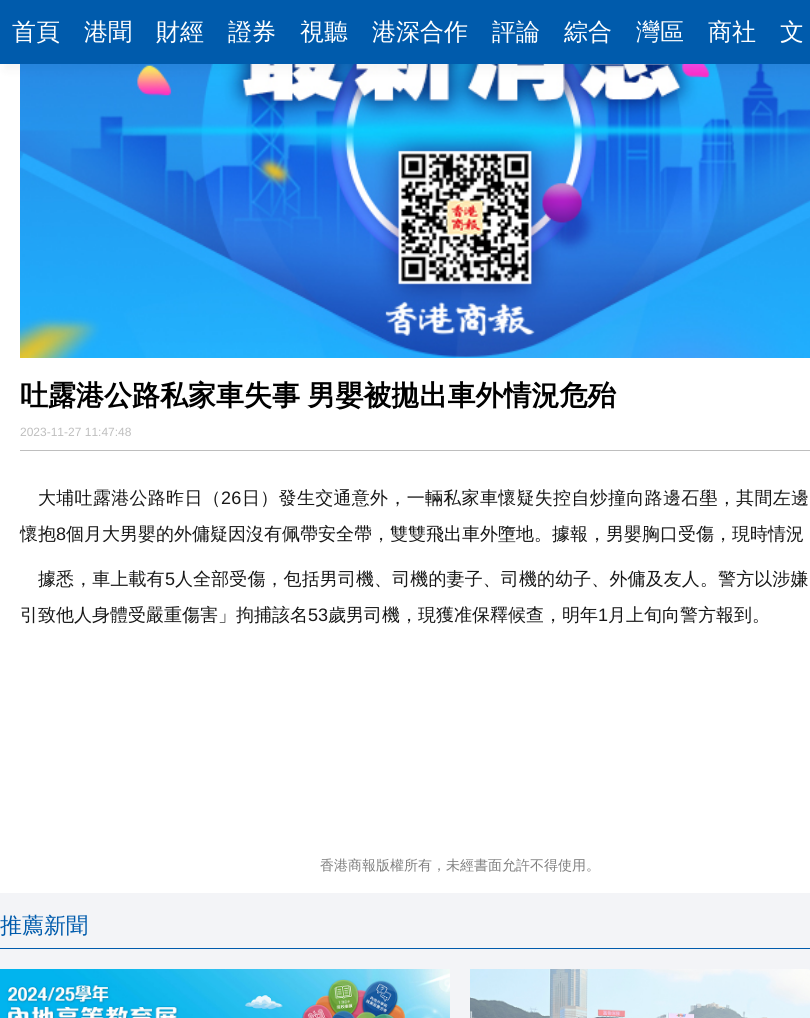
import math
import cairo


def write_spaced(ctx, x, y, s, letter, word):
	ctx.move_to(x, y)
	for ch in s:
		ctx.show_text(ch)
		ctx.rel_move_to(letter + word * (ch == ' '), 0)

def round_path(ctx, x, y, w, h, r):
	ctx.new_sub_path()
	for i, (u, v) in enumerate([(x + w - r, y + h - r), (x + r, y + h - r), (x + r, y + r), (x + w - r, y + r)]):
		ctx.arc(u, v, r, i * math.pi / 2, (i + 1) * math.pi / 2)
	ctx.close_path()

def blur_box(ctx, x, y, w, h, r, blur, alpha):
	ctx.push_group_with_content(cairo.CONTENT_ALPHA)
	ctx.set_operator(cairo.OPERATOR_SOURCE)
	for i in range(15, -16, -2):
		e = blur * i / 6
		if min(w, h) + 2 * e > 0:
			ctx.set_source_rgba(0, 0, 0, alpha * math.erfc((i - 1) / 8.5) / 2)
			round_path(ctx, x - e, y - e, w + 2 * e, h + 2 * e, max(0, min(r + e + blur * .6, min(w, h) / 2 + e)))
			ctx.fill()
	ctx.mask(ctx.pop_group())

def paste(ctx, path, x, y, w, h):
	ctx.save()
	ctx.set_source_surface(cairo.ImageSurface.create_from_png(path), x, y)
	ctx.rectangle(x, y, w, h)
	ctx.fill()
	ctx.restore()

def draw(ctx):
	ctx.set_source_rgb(0.953, 0.957, 0.965)
	ctx.paint()
	ctx.set_source_rgb(1, 1, 1)
	ctx.rectangle(0, 64, 810, 829)
	ctx.fill()
	paste(ctx, 'media/1.png', 20, 64, 790, 294)
	ctx.set_source_rgb(0, 0, 0)
	blur_box(ctx, 5, 5, 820, 64, 0, 5, 0.05)
	ctx.set_source_rgb(0, 0.357, 0.675)
	ctx.rectangle(0, 0, 810, 64)
	ctx.fill()
	ctx.select_font_face('WenQuanYi Zen Hei Medium')
	ctx.set_font_size(24)
	ctx.set_source_rgb(1, 1, 1)
	for x, y, s in [
		(12, 40, '首頁'),
		(84, 40, '港聞'),
		(156, 40, '財經'),
		(228, 40, '證券'),
		(300, 40, '視聽'),
		(372, 40, '港深合作'),
		(492, 40, '評論'),
		(564, 40, '綜合'),
		(636, 40, '灣區'),
		(708, 40, '商社'),
		(780, 40, '文'),
	]:
		ctx.move_to(x, y)
		ctx.show_text(s)
	ctx.select_font_face('WenQuanYi Zen Hei', cairo.FONT_SLANT_NORMAL, cairo.FONT_WEIGHT_BOLD)
	ctx.set_font_size(28)
	ctx.set_source_rgb(0, 0, 0)
	write_spaced(ctx, 20, 405, '吐露港公路私家車失事 男嬰被拋出車外情況危殆', 0, -1)
	ctx.select_font_face('Liberation Sans')
	ctx.set_font_size(12)
	ctx.set_source_rgb(0.745, 0.745, 0.745)
	ctx.move_to(20, 436)
	ctx.show_text('2023-11-27 11:47:48')
	ctx.rectangle(20, 450, 790, 1)
	ctx.fill()
	ctx.select_font_face('WenQuanYi Zen Hei Medium')
	ctx.set_font_size(18)
	ctx.set_source_rgb(0.09, 0.09, 0.09)
	write_spaced(ctx, 38, 504, '大埔吐露港公路昨日（', 0.3, 0)
	ctx.select_font_face('Liberation Sans')
	write_spaced(ctx, 221, 504, '26', 0.3, 0)
	ctx.select_font_face('WenQuanYi Zen Hei Medium')
	write_spaced(ctx, 242, 504, '日）發生交通意外，一輛私家車懷疑失控自炒撞向路邊石壆，其間左邊', 0.3, 0)
	ctx.move_to(20, 540)
	ctx.show_text('懷抱')
	ctx.select_font_face('Liberation Sans')
	ctx.move_to(56, 540)
	ctx.show_text('8')
	ctx.select_font_face('WenQuanYi Zen Hei Medium')
	ctx.move_to(66, 540)
	ctx.show_text('個月大男嬰的外傭疑因沒有佩帶安全帶，雙雙飛出車外墮地。據報，男嬰胸口受傷，現時情況')
	write_spaced(ctx, 38, 585, '據悉，車上載有', 0.1, 0)
	ctx.select_font_face('Liberation Sans')
	write_spaced(ctx, 165, 585, '5', 0.1, 0)
	ctx.select_font_face('WenQuanYi Zen Hei Medium')
	write_spaced(ctx, 175, 585, '人全部受傷，包括男司機、司機的妻子、司機的幼子、外傭及友人。警方以涉嫌', 0.1, 0)
	ctx.move_to(20, 621)
	ctx.show_text('引致他人身體受嚴重傷害」拘捕該名')
	ctx.select_font_face('Liberation Sans')
	ctx.move_to(308, 621)
	ctx.show_text('53')
	ctx.select_font_face('WenQuanYi Zen Hei Medium')
	ctx.move_to(328, 621)
	ctx.show_text('歲男司機，現獲准保釋候查，明年')
	ctx.select_font_face('Liberation Sans')
	ctx.move_to(598, 621)
	ctx.show_text('1')
	ctx.select_font_face('WenQuanYi Zen Hei Medium')
	ctx.move_to(608, 621)
	ctx.show_text('月上旬向警方報到。')
	ctx.set_font_size(14)
	ctx.set_source_rgb(0.498, 0.498, 0.498)
	ctx.move_to(320, 870)
	ctx.show_text('香港商報版權所有，未經書面允許不得使用。')
	ctx.set_source_rgb(0, 0.357, 0.675)
	ctx.rectangle(0, 948, 810, 1)
	ctx.fill()
	ctx.set_font_size(22)
	ctx.move_to(0, 933)
	ctx.show_text('推薦新聞')
	paste(ctx, 'media/2.png', 0, 969, 450, 49)
	paste(ctx, 'media/3.png', 470, 969, 340, 49)


surface = cairo.ImageSurface(cairo.FORMAT_RGB24, 810, 1018)
ctx = cairo.Context(surface)
options = cairo.FontOptions()
options.set_hint_metrics(cairo.HINT_METRICS_OFF)
options.set_hint_style(cairo.HINT_STYLE_NONE)
ctx.set_font_options(options)
ctx.set_miter_limit(4)
draw(ctx)
surface.write_to_png('image.png')
